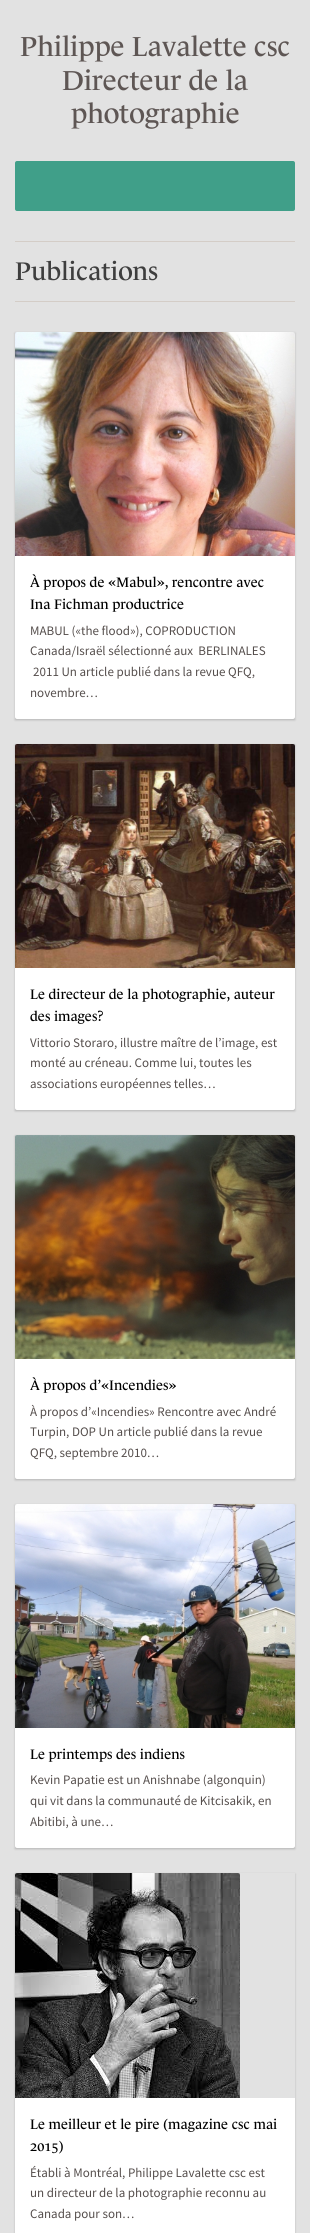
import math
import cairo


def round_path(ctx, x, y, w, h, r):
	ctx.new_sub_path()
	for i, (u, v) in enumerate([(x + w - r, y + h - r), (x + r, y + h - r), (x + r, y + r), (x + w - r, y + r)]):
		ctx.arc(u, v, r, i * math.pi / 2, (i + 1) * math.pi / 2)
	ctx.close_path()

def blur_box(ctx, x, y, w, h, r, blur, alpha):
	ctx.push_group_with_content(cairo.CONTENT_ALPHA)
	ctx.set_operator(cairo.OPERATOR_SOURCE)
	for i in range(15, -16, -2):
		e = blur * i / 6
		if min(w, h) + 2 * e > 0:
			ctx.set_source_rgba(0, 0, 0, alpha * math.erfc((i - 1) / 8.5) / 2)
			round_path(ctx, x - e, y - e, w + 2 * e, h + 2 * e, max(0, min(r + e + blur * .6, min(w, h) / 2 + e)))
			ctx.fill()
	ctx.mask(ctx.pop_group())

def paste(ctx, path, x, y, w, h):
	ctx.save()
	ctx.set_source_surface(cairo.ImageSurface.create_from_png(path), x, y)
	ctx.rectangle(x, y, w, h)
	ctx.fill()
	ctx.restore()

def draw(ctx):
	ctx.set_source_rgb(0.886, 0.886, 0.886)
	ctx.paint()
	ctx.select_font_face('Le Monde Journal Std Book')
	ctx.set_font_size(28)
	ctx.set_source_rgb(0.369, 0.337, 0.329)
	for x, y, s in [
		(20, 56, 'Philippe Lavalette csc'),
		(62, 90, 'Directeur de la'),
		(71, 123, 'photographie'),
	]:
		ctx.move_to(x, y)
		ctx.show_text(s)
	ctx.set_source_rgb(0.251, 0.624, 0.537)
	round_path(ctx, 15, 161, 280, 50, 2)
	ctx.fill()
	ctx.set_source_rgb(0.831, 0.804, 0.78)
	ctx.rectangle(15, 241, 280, 1)
	ctx.fill()
	ctx.rectangle(15, 301, 280, 1)
	ctx.fill()
	ctx.set_font_size(26)
	ctx.set_source_rgb(0.243, 0.243, 0.243)
	ctx.move_to(15, 280)
	ctx.show_text('Publications')
	ctx.set_source_rgb(0, 0, 0)
	blur_box(ctx, 15, 333, 280, 387, 0, 1, 0.2)
	paste(ctx, 'media/1.png', 15, 332, 280, 224)
	ctx.set_source_rgb(1, 1, 1)
	ctx.new_path()
	ctx.move_to(15, 556)
	ctx.line_to(295, 556)
	ctx.line_to(295, 717)
	ctx.curve_to(295, 718, 294, 719, 293, 719)
	ctx.line_to(17, 719)
	ctx.curve_to(16, 719, 15, 718, 15, 717)
	ctx.close_path()
	ctx.fill()
	ctx.set_font_size(14)
	ctx.set_source_rgb(0, 0, 0)
	ctx.move_to(30, 587)
	ctx.show_text('À propos de «Mabul», rencontre avec')
	ctx.move_to(30, 609)
	ctx.show_text('Ina Fichman productrice')
	ctx.select_font_face('Source Sans Pro')
	ctx.set_font_size(13)
	ctx.set_source_rgb(0.333, 0.306, 0.298)
	for x, y, s in [
		(30, 635, 'MABUL («the flood»), COPRODUCTION'),
		(30, 655, 'Canada/Israël sélectionné aux  BERLINALES'),
		(33, 676, '2011 Un article publié dans la revue QFQ,'),
		(30, 697, 'novembre…'),
	]:
		ctx.move_to(x, y)
		ctx.show_text(s)
	ctx.set_source_rgb(0, 0, 0)
	blur_box(ctx, 15, 745, 280, 366, 0, 1, 0.2)
	paste(ctx, 'media/2.png', 15, 744, 280, 224)
	ctx.set_source_rgb(1, 1, 1)
	ctx.new_path()
	ctx.move_to(15, 968)
	ctx.line_to(295, 968)
	ctx.line_to(295, 1108)
	ctx.curve_to(295, 1109, 294, 1110, 293, 1110)
	ctx.line_to(17, 1110)
	ctx.curve_to(16, 1110, 15, 1109, 15, 1108)
	ctx.close_path()
	ctx.fill()
	ctx.select_font_face('Le Monde Journal Std Book')
	ctx.set_font_size(14)
	ctx.set_source_rgb(0, 0, 0)
	ctx.move_to(30, 999)
	ctx.show_text('Le directeur de la photographie, auteur')
	ctx.move_to(30, 1021)
	ctx.show_text('des images?')
	ctx.select_font_face('Source Sans Pro')
	ctx.set_font_size(13)
	ctx.set_source_rgb(0.333, 0.306, 0.298)
	for x, y, s in [
		(30, 1047, 'Vittorio Storaro, illustre maître de l’image, est'),
		(30, 1067, 'monté au créneau. Comme lui, toutes les'),
		(30, 1088, 'associations européennes telles…'),
	]:
		ctx.move_to(x, y)
		ctx.show_text(s)
	ctx.set_source_rgb(0, 0, 0)
	blur_box(ctx, 15, 1136, 280, 344, 0, 1, 0.2)
	paste(ctx, 'media/3.png', 15, 1135, 280, 224)
	ctx.set_source_rgb(1, 1, 1)
	ctx.new_path()
	ctx.move_to(15, 1359)
	ctx.line_to(295, 1359)
	ctx.line_to(295, 1477)
	ctx.curve_to(295, 1478, 294, 1479, 293, 1479)
	ctx.line_to(17, 1479)
	ctx.curve_to(16, 1479, 15, 1478, 15, 1477)
	ctx.close_path()
	ctx.fill()
	ctx.select_font_face('Le Monde Journal Std Book')
	ctx.set_font_size(14)
	ctx.set_source_rgb(0, 0, 0)
	ctx.move_to(30, 1390)
	ctx.show_text('À propos d’«Incendies»')
	ctx.select_font_face('Source Sans Pro')
	ctx.set_font_size(13)
	ctx.set_source_rgb(0.333, 0.306, 0.298)
	for x, y, s in [
		(30, 1416, 'À propos d’«Incendies» Rencontre avec André'),
		(30, 1436, 'Turpin, DOP Un article publié dans la revue'),
		(30, 1457, 'QFQ, septembre 2010…'),
	]:
		ctx.move_to(x, y)
		ctx.show_text(s)
	ctx.set_source_rgb(0, 0, 0)
	blur_box(ctx, 15, 1505, 280, 344, 0, 1, 0.2)
	paste(ctx, 'media/4.png', 15, 1504, 280, 224)
	ctx.set_source_rgb(1, 1, 1)
	ctx.new_path()
	ctx.move_to(15, 1728)
	ctx.line_to(295, 1728)
	ctx.line_to(295, 1846)
	ctx.curve_to(295, 1847, 294, 1848, 293, 1848)
	ctx.line_to(17, 1848)
	ctx.curve_to(16, 1848, 15, 1847, 15, 1846)
	ctx.close_path()
	ctx.fill()
	ctx.select_font_face('Le Monde Journal Std Book')
	ctx.set_font_size(14)
	ctx.set_source_rgb(0, 0, 0)
	ctx.move_to(30, 1759)
	ctx.show_text('Le printemps des indiens')
	ctx.select_font_face('Source Sans Pro')
	ctx.set_font_size(13)
	ctx.set_source_rgb(0.333, 0.306, 0.298)
	for x, y, s in [
		(30, 1784, 'Kevin Papatie est un Anishnabe (algonquin)'),
		(30, 1805, 'qui vit dans la communauté de Kitcisakik, en'),
		(30, 1826, 'Abitibi, à une…'),
	]:
		ctx.move_to(x, y)
		ctx.show_text(s)
	ctx.save()
	ctx.set_fill_rule(cairo.FILL_RULE_EVEN_ODD)
	ctx.new_path()
	ctx.move_to(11, 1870)
	ctx.line_to(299, 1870)
	ctx.line_to(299, 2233)
	ctx.line_to(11, 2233)
	ctx.close_path()
	ctx.move_to(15, 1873)
	ctx.line_to(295, 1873)
	ctx.line_to(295, 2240)
	ctx.line_to(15, 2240)
	ctx.close_path()
	ctx.clip()
	ctx.set_source_rgb(0, 0, 0)
	blur_box(ctx, 15, 1874, 280, 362, 0, 1, 0.2)
	ctx.restore()
	paste(ctx, 'media/5.png', 15, 1873, 225, 225)
	ctx.set_source_rgb(1, 1, 1)
	ctx.rectangle(15, 2098, 280, 135)
	ctx.fill()
	ctx.select_font_face('Le Monde Journal Std Book')
	ctx.set_font_size(14)
	ctx.set_source_rgb(0, 0, 0)
	ctx.move_to(30, 2129)
	ctx.show_text('Le meilleur et le pire (magazine csc mai')
	ctx.move_to(30, 2151)
	ctx.show_text('2015)')
	ctx.select_font_face('Source Sans Pro')
	ctx.set_font_size(13)
	ctx.set_source_rgb(0.333, 0.306, 0.298)
	for x, y, s in [
		(30, 2177, 'Établi à Montréal, Philippe Lavalette csc est'),
		(30, 2197, 'un directeur de la photographie reconnu au'),
		(30, 2218, 'Canada pour son…'),
	]:
		ctx.move_to(x, y)
		ctx.show_text(s)


surface = cairo.ImageSurface(cairo.FORMAT_RGB24, 310, 2233)
ctx = cairo.Context(surface)
options = cairo.FontOptions()
options.set_hint_metrics(cairo.HINT_METRICS_OFF)
options.set_hint_style(cairo.HINT_STYLE_NONE)
ctx.set_font_options(options)
ctx.set_miter_limit(4)
draw(ctx)
surface.write_to_png('image.png')
